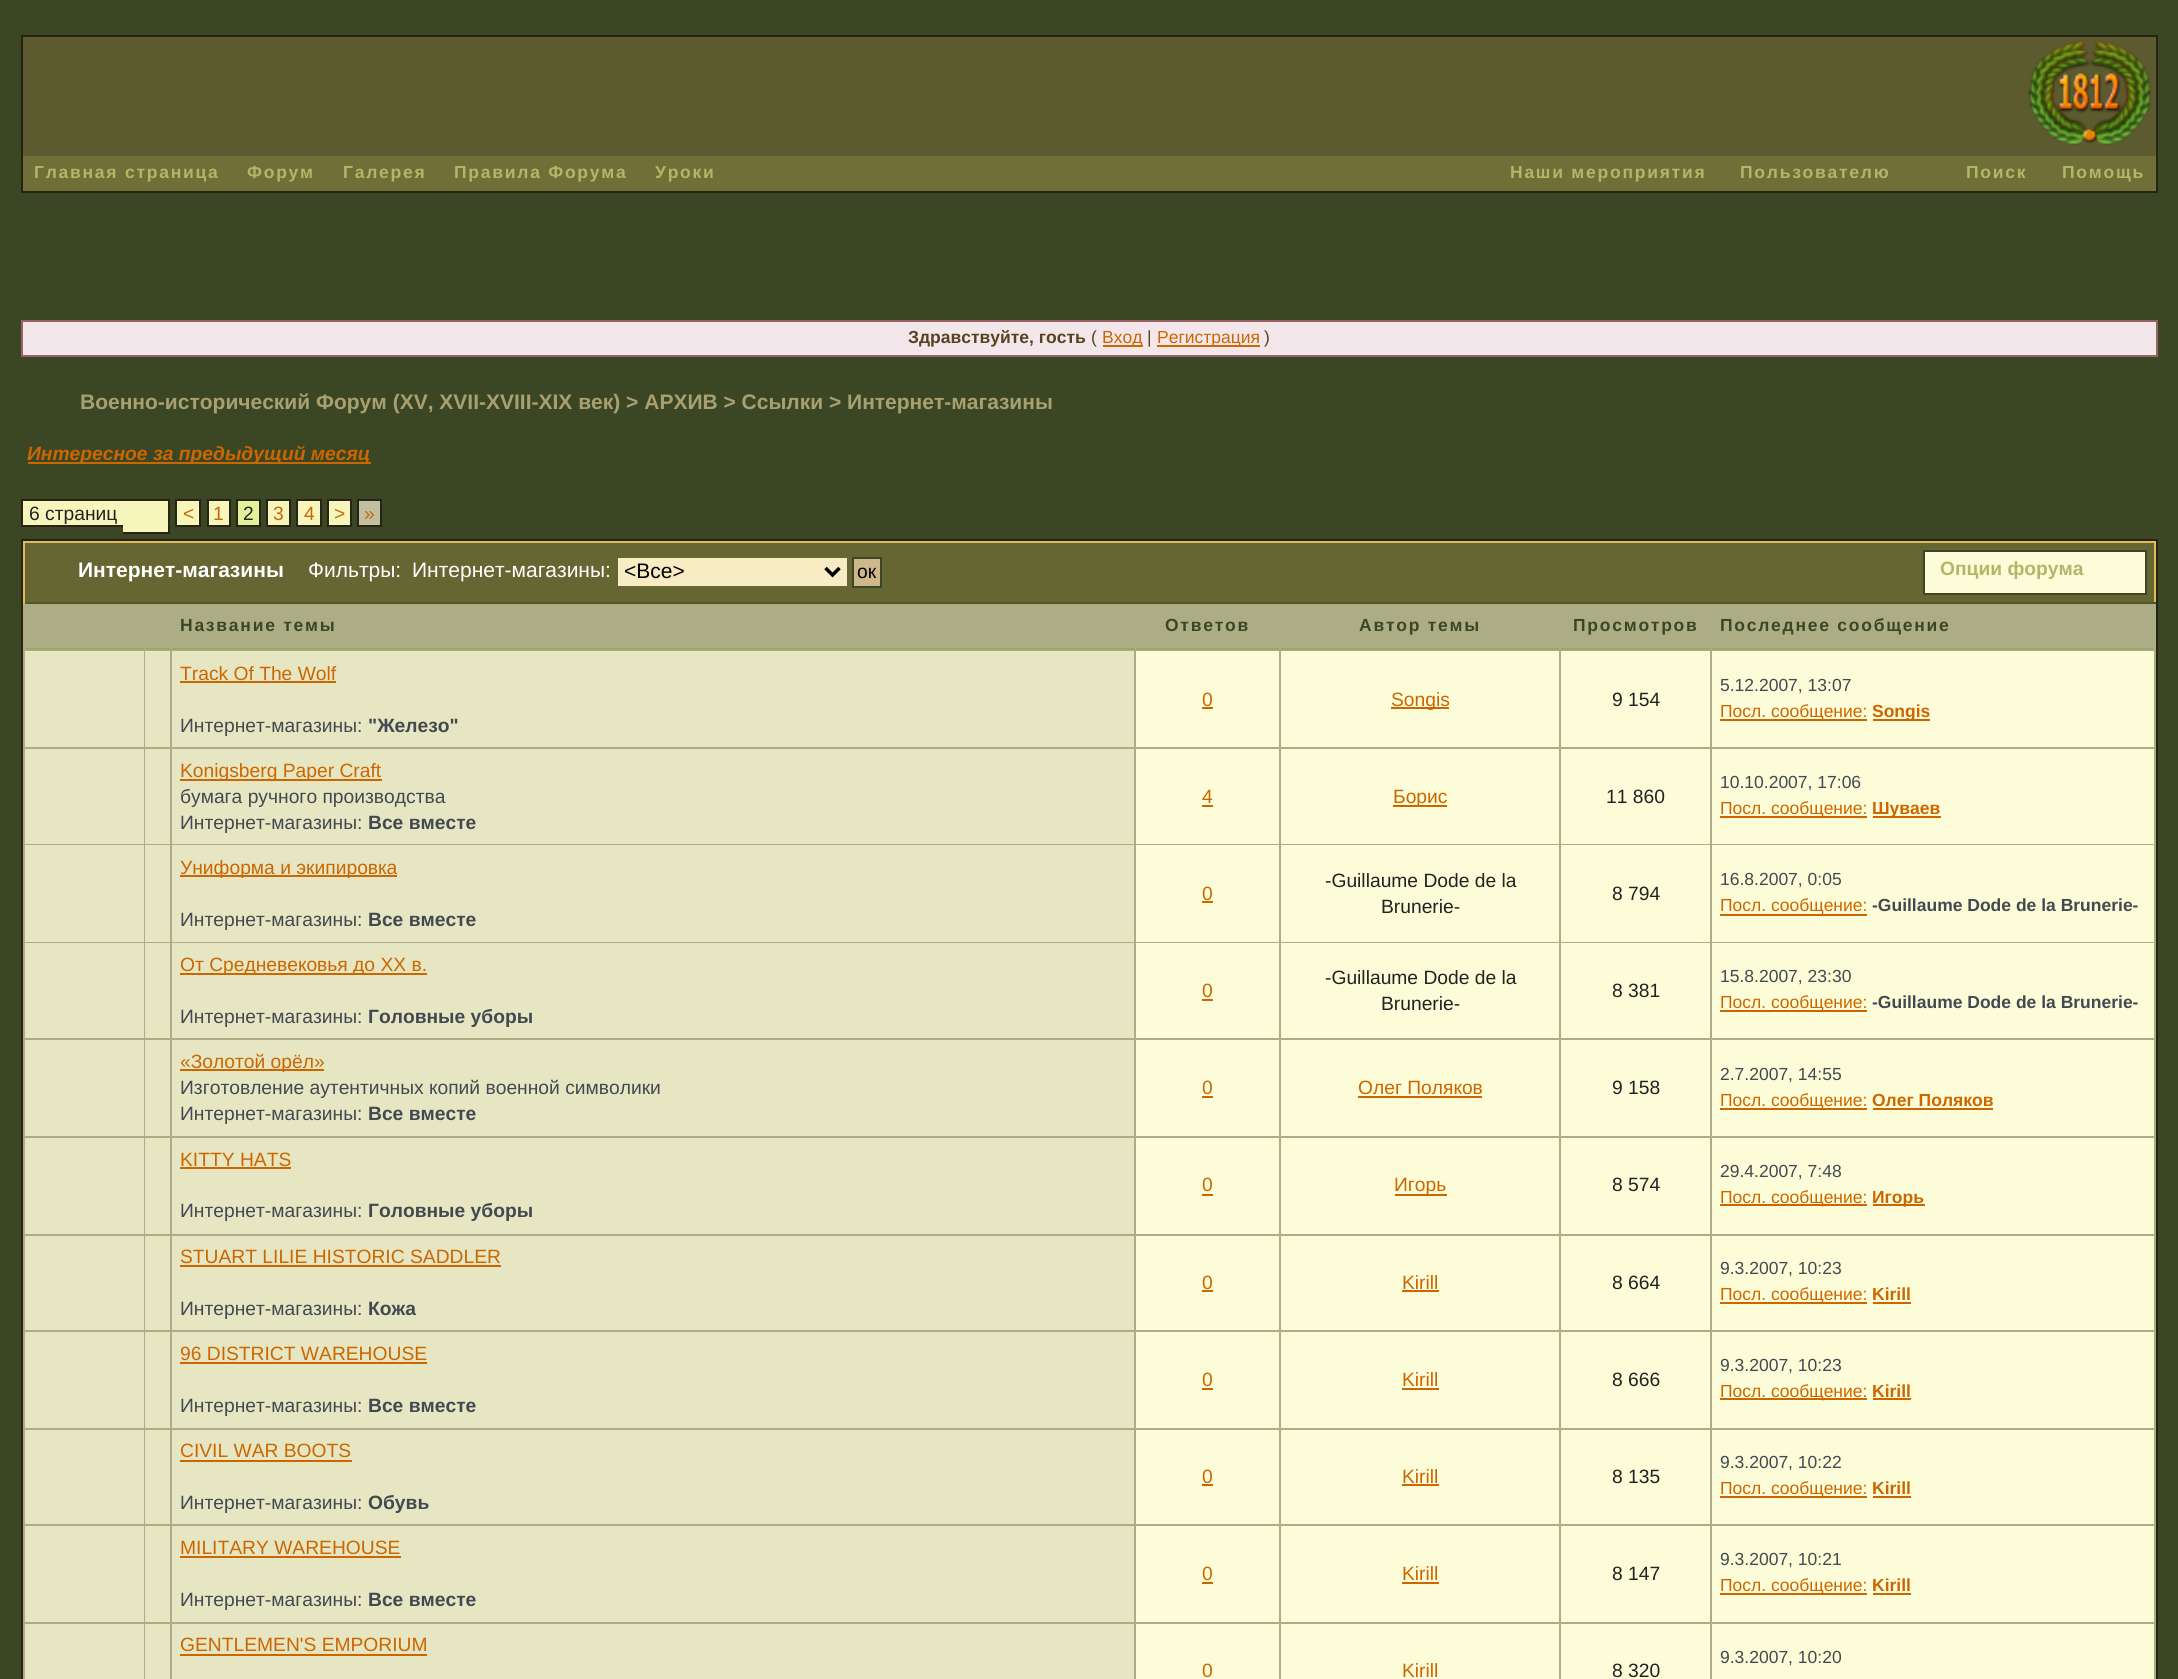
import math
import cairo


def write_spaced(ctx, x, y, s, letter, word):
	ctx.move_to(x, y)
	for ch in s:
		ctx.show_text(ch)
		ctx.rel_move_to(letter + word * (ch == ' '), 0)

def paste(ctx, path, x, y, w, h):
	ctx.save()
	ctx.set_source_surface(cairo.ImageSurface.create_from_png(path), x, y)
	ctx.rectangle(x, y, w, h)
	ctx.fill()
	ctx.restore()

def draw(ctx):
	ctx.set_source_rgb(0.231, 0.275, 0.145)
	ctx.paint()
	ctx.rectangle(22, 36, 2135, 156)
	ctx.set_source_rgb(0.157, 0.137, 0.071)
	ctx.stroke()
	ctx.set_source_rgb(0.357, 0.357, 0.184)
	ctx.rectangle(23, 37, 2133, 119)
	ctx.fill()
	paste(ctx, 'media/1.png', 2028, 40, 123, 106)
	ctx.set_source_rgb(0.435, 0.435, 0.216)
	ctx.rectangle(23, 156, 2133, 35)
	ctx.fill()
	ctx.select_font_face('Liberation Sans', cairo.FONT_SLANT_NORMAL, cairo.FONT_WEIGHT_BOLD)
	ctx.set_font_size(17.5)
	ctx.set_source_rgb(0.69, 0.722, 0.408)
	for x, y, s in [
		(34, 178, 'Главная страница'),
		(247, 178, 'Форум'),
		(343, 178, 'Галерея'),
		(454, 178, 'Правила Форума'),
		(655, 178, 'Уроки'),
		(1510, 178, 'Наши мероприятия'),
		(1740, 178, 'Пользователю'),
		(1966, 178, 'Поиск'),
		(2062, 178, 'Помощь'),
	]:
		write_spaced(ctx, x, y, s, 1.75, 0)
	ctx.set_source_rgb(0.957, 0.906, 0.918)
	ctx.rectangle(22, 321, 2135, 35)
	ctx.fill_preserve()
	ctx.set_source_rgb(0.596, 0.384, 0.396)
	ctx.stroke()
	ctx.set_source_rgb(0.349, 0.259, 0.125)
	ctx.move_to(908, 343)
	ctx.show_text('Здравствуйте, гость')
	ctx.select_font_face('Liberation Sans')
	ctx.move_to(1091, 343)
	ctx.show_text('(')
	ctx.set_source_rgb(0.8, 0.4, 0)
	ctx.rectangle(1103, 345, 40, 2)
	ctx.fill()
	ctx.move_to(1102, 343)
	ctx.show_text('Вход')
	ctx.set_source_rgb(0.349, 0.259, 0.125)
	ctx.move_to(1147, 343)
	ctx.show_text('|')
	ctx.set_source_rgb(0.8, 0.4, 0)
	ctx.rectangle(1157, 345, 103, 2)
	ctx.fill()
	ctx.move_to(1157, 343)
	ctx.show_text('Регистрация')
	ctx.set_source_rgb(0.349, 0.259, 0.125)
	ctx.move_to(1264, 343)
	ctx.show_text(')')
	ctx.select_font_face('Liberation Sans', cairo.FONT_SLANT_NORMAL, cairo.FONT_WEIGHT_BOLD)
	ctx.set_font_size(21)
	ctx.set_source_rgb(0.663, 0.627, 0.439)
	ctx.move_to(80, 409)
	ctx.show_text('Военно-исторический Форум (XV, XVII-XVIII-XIX век) > АРХИВ > Ссылки > Интернет-магазины')
	ctx.set_source_rgb(0.8, 0.4, 0)
	ctx.rectangle(28, 462, 343, 2)
	ctx.fill()
	ctx.select_font_face('Liberation Sans', cairo.FONT_SLANT_ITALIC, cairo.FONT_WEIGHT_BOLD)
	ctx.set_font_size(19.25)
	ctx.move_to(27, 460)
	ctx.show_text('Интересное за предыдущий месяц')
	ctx.set_source_rgb(0.961, 0.961, 0.737)
	ctx.rectangle(23, 501, 100, 24)
	ctx.fill()
	ctx.select_font_face('Liberation Sans')
	ctx.set_source_rgb(0.133, 0.133, 0.133)
	ctx.move_to(29, 520)
	ctx.show_text('6 страниц')
	ctx.set_source_rgb(0.157, 0.137, 0.071)
	ctx.rectangle(21, 499, 149, 2)
	ctx.rectangle(21, 525, 102, 2)
	ctx.rectangle(21, 499, 2, 28)
	ctx.fill()
	ctx.set_source_rgb(0.961, 0.961, 0.737)
	ctx.rectangle(123, 501, 45, 31)
	ctx.fill()
	ctx.set_source_rgb(0.157, 0.137, 0.071)
	ctx.rectangle(168, 499, 2, 35)
	ctx.rectangle(123, 532, 47, 2)
	ctx.fill()
	ctx.set_source_rgb(0.961, 0.961, 0.737)
	ctx.rectangle(176, 500, 24, 26)
	ctx.fill_preserve()
	ctx.set_source_rgb(0.157, 0.137, 0.071)
	ctx.stroke()
	ctx.set_source_rgb(0.8, 0.4, 0)
	ctx.move_to(183, 520)
	ctx.show_text('<')
	ctx.set_source_rgb(0.961, 0.961, 0.737)
	ctx.rectangle(208, 500, 22, 26)
	ctx.fill_preserve()
	ctx.set_source_rgb(0.157, 0.137, 0.071)
	ctx.stroke()
	ctx.set_source_rgb(0.8, 0.4, 0)
	ctx.move_to(213, 520)
	ctx.show_text('1')
	ctx.set_source_rgb(0.894, 0.945, 0.608)
	ctx.rectangle(237, 500, 23, 26)
	ctx.fill_preserve()
	ctx.set_source_rgb(0.157, 0.137, 0.071)
	ctx.stroke()
	ctx.set_source_rgb(0.133, 0.133, 0.133)
	ctx.move_to(243, 520)
	ctx.show_text('2')
	ctx.set_source_rgb(0.961, 0.961, 0.737)
	ctx.rectangle(267, 500, 23, 26)
	ctx.fill_preserve()
	ctx.set_source_rgb(0.157, 0.137, 0.071)
	ctx.stroke()
	ctx.set_source_rgb(0.8, 0.4, 0)
	ctx.move_to(273, 520)
	ctx.show_text('3')
	ctx.set_source_rgb(0.961, 0.961, 0.737)
	ctx.rectangle(297, 500, 24, 26)
	ctx.fill_preserve()
	ctx.set_source_rgb(0.157, 0.137, 0.071)
	ctx.stroke()
	ctx.set_source_rgb(0.8, 0.4, 0)
	ctx.move_to(304, 520)
	ctx.show_text('4')
	ctx.set_source_rgb(0.961, 0.961, 0.737)
	ctx.rectangle(328, 500, 23, 26)
	ctx.fill_preserve()
	ctx.set_source_rgb(0.157, 0.137, 0.071)
	ctx.stroke()
	ctx.set_source_rgb(0.8, 0.4, 0)
	ctx.move_to(334, 520)
	ctx.show_text('>')
	ctx.set_source_rgb(0.753, 0.753, 0.631)
	ctx.rectangle(358, 500, 23, 26)
	ctx.fill_preserve()
	ctx.set_source_rgb(0.157, 0.137, 0.071)
	ctx.stroke()
	ctx.set_source_rgb(0.8, 0.4, 0)
	ctx.move_to(364, 520)
	ctx.show_text('»')
	ctx.set_source_rgb(0.678, 0.678, 0.522)
	ctx.rectangle(23, 604, 2133, 1075)
	ctx.fill()
	ctx.rectangle(22, 540, 2135, 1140)
	ctx.set_source_rgb(0.157, 0.137, 0.071)
	ctx.stroke()
	ctx.set_source_rgb(0.4, 0.4, 0.2)
	ctx.rectangle(25, 543, 2129, 59)
	ctx.fill()
	ctx.set_source_rgb(0.878, 0.733, 0.353)
	ctx.rectangle(23, 541, 2133, 2)
	ctx.rectangle(2154, 541, 2, 63)
	ctx.fill()
	ctx.set_source_rgb(0.333, 0.333, 0.169)
	ctx.rectangle(23, 602, 2133, 2)
	ctx.fill()
	ctx.set_source_rgb(0.878, 0.733, 0.353)
	ctx.rectangle(23, 541, 2, 63)
	ctx.fill()
	ctx.select_font_face('Liberation Sans', cairo.FONT_SLANT_NORMAL, cairo.FONT_WEIGHT_BOLD)
	ctx.set_font_size(21)
	ctx.set_source_rgb(1, 1, 1)
	ctx.move_to(78, 577)
	ctx.show_text('Интернет-магазины')
	ctx.select_font_face('Liberation Sans')
	ctx.move_to(308, 577)
	ctx.show_text('Фильтры:')
	ctx.move_to(412, 577)
	ctx.show_text('Интернет-магазины:')
	ctx.set_source_rgb(0.969, 0.925, 0.769)
	ctx.rectangle(618, 558, 229, 28)
	ctx.fill()
	ctx.new_path()
	ctx.move_to(825.5, 568)
	ctx.line_to(832.5, 575)
	ctx.line_to(839.5, 568)
	ctx.set_source_rgb(0, 0, 0)
	ctx.set_line_width(3.5)
	ctx.stroke()
	ctx.move_to(624, 578)
	ctx.show_text('<Все>')
	ctx.set_source_rgb(0.812, 0.718, 0.549)
	ctx.rectangle(853, 558, 28, 29)
	ctx.fill_preserve()
	ctx.set_source_rgb(0.231, 0.275, 0.145)
	ctx.set_line_width(2)
	ctx.stroke()
	ctx.set_font_size(19.25)
	ctx.set_source_rgb(0, 0, 0)
	ctx.move_to(857, 578)
	ctx.show_text('ок')
	ctx.set_source_rgb(0.988, 0.988, 0.847)
	ctx.rectangle(1924, 551, 222, 43)
	ctx.fill_preserve()
	ctx.set_source_rgb(0.231, 0.275, 0.145)
	ctx.stroke()
	ctx.select_font_face('Liberation Sans', cairo.FONT_SLANT_NORMAL, cairo.FONT_WEIGHT_BOLD)
	ctx.set_source_rgb(0.69, 0.722, 0.408)
	ctx.move_to(1940, 575)
	ctx.show_text('Опции форума')
	ctx.set_source_rgb(0.6, 0.659, 0.431)
	ctx.rectangle(172, 648, 962, 2)
	ctx.fill()
	ctx.set_font_size(17.5)
	ctx.set_source_rgb(0.231, 0.275, 0.145)
	write_spaced(ctx, 180, 631, 'Название темы', 1.75, 0)
	ctx.set_source_rgb(0.6, 0.659, 0.431)
	ctx.rectangle(1136, 648, 143, 2)
	ctx.fill()
	ctx.set_source_rgb(0.231, 0.275, 0.145)
	write_spaced(ctx, 1165, 631, 'Ответов', 1.75, 0)
	ctx.set_source_rgb(0.6, 0.659, 0.431)
	ctx.rectangle(1281, 648, 278, 2)
	ctx.fill()
	ctx.set_source_rgb(0.231, 0.275, 0.145)
	write_spaced(ctx, 1359, 631, 'Автор темы', 1.75, 0)
	ctx.set_source_rgb(0.6, 0.659, 0.431)
	ctx.rectangle(1561, 648, 149, 2)
	ctx.fill()
	ctx.set_source_rgb(0.231, 0.275, 0.145)
	write_spaced(ctx, 1573, 631, 'Просмотров', 1.75, 0)
	ctx.set_source_rgb(0.6, 0.659, 0.431)
	ctx.rectangle(1712, 648, 442, 2)
	ctx.fill()
	ctx.set_source_rgb(0.231, 0.275, 0.145)
	write_spaced(ctx, 1720, 631, 'Последнее сообщение', 1.75, 0)
	ctx.set_source_rgb(0.6, 0.659, 0.431)
	ctx.rectangle(25, 648, 119, 2)
	ctx.rectangle(145, 648, 25, 2)
	ctx.fill()
	ctx.set_source_rgb(0.902, 0.902, 0.761)
	ctx.rectangle(25, 651, 119, 96)
	ctx.rectangle(145, 651, 25, 96)
	ctx.rectangle(172, 651, 962, 96)
	ctx.fill()
	ctx.select_font_face('Liberation Sans')
	ctx.set_font_size(19.25)
	ctx.set_source_rgb(0.8, 0.4, 0)
	ctx.move_to(180, 680)
	ctx.show_text('Track Of The Wolf')
	ctx.rectangle(180, 681, 156, 2)
	ctx.fill()
	ctx.set_source_rgb(0.263, 0.286, 0.318)
	ctx.move_to(180, 732)
	ctx.show_text('Интернет-магазины:')
	ctx.select_font_face('Liberation Sans', cairo.FONT_SLANT_NORMAL, cairo.FONT_WEIGHT_BOLD)
	ctx.move_to(368, 732)
	ctx.show_text('"Железо"')
	ctx.set_source_rgb(0.988, 0.988, 0.847)
	ctx.rectangle(1136, 651, 143, 96)
	ctx.fill()
	ctx.select_font_face('Liberation Sans')
	ctx.set_source_rgb(0.8, 0.4, 0)
	ctx.move_to(1202, 706)
	ctx.show_text('0')
	ctx.rectangle(1202, 707, 11, 2)
	ctx.fill()
	ctx.set_source_rgb(0.988, 0.988, 0.847)
	ctx.rectangle(1281, 651, 278, 96)
	ctx.fill()
	ctx.set_source_rgb(0.8, 0.4, 0)
	ctx.rectangle(1391, 707, 58, 2)
	ctx.fill()
	ctx.move_to(1391, 706)
	ctx.show_text('Songis')
	ctx.set_source_rgb(0.988, 0.988, 0.847)
	ctx.rectangle(1561, 651, 149, 96)
	ctx.fill()
	ctx.set_source_rgb(0.133, 0.133, 0.133)
	ctx.move_to(1612, 706)
	ctx.show_text('9 154')
	ctx.set_source_rgb(0.988, 0.988, 0.847)
	ctx.rectangle(1712, 651, 442, 96)
	ctx.fill()
	ctx.set_font_size(17.5)
	ctx.set_source_rgb(0.263, 0.286, 0.318)
	ctx.move_to(1720, 691)
	ctx.show_text('5.12.2007, 13:07')
	ctx.set_source_rgb(0.8, 0.4, 0)
	ctx.rectangle(1720, 719, 147, 2)
	ctx.fill()
	ctx.move_to(1720, 717)
	ctx.show_text('Посл. сообщение:')
	ctx.rectangle(1873, 719, 57, 2)
	ctx.fill()
	ctx.select_font_face('Liberation Sans', cairo.FONT_SLANT_NORMAL, cairo.FONT_WEIGHT_BOLD)
	ctx.move_to(1872, 717)
	ctx.show_text('Songis')
	ctx.set_source_rgb(0.902, 0.902, 0.761)
	ctx.rectangle(25, 749, 119, 95)
	ctx.rectangle(145, 749, 25, 95)
	ctx.rectangle(172, 749, 962, 95)
	ctx.fill()
	ctx.set_source_rgb(0.8, 0.4, 0)
	ctx.rectangle(180, 779, 202, 2)
	ctx.fill()
	ctx.select_font_face('Liberation Sans')
	ctx.set_font_size(19.25)
	ctx.move_to(180, 777)
	ctx.show_text('Konigsberg Paper Craft')
	ctx.set_source_rgb(0.263, 0.286, 0.318)
	ctx.move_to(180, 803)
	ctx.show_text('бумага ручного производства')
	ctx.move_to(180, 829)
	ctx.show_text('Интернет-магазины:')
	ctx.select_font_face('Liberation Sans', cairo.FONT_SLANT_NORMAL, cairo.FONT_WEIGHT_BOLD)
	ctx.move_to(368, 829)
	ctx.show_text('Все вместе')
	ctx.set_source_rgb(0.988, 0.988, 0.847)
	ctx.rectangle(1136, 749, 143, 95)
	ctx.fill()
	ctx.select_font_face('Liberation Sans')
	ctx.set_source_rgb(0.8, 0.4, 0)
	ctx.move_to(1202, 803)
	ctx.show_text('4')
	ctx.rectangle(1202, 805, 11, 2)
	ctx.fill()
	ctx.set_source_rgb(0.988, 0.988, 0.847)
	ctx.rectangle(1281, 749, 278, 95)
	ctx.fill()
	ctx.set_source_rgb(0.8, 0.4, 0)
	ctx.rectangle(1393, 805, 54, 2)
	ctx.fill()
	ctx.move_to(1393, 803)
	ctx.show_text('Борис')
	ctx.set_source_rgb(0.988, 0.988, 0.847)
	ctx.rectangle(1561, 749, 149, 95)
	ctx.fill()
	ctx.set_source_rgb(0.133, 0.133, 0.133)
	ctx.move_to(1606, 803)
	ctx.show_text('11 860')
	ctx.set_source_rgb(0.988, 0.988, 0.847)
	ctx.rectangle(1712, 749, 442, 95)
	ctx.fill()
	ctx.set_font_size(17.5)
	ctx.set_source_rgb(0.263, 0.286, 0.318)
	ctx.move_to(1720, 788)
	ctx.show_text('10.10.2007, 17:06')
	ctx.set_source_rgb(0.8, 0.4, 0)
	ctx.rectangle(1720, 816, 147, 2)
	ctx.fill()
	ctx.move_to(1720, 814)
	ctx.show_text('Посл. сообщение:')
	ctx.rectangle(1873, 816, 68, 2)
	ctx.fill()
	ctx.select_font_face('Liberation Sans', cairo.FONT_SLANT_NORMAL, cairo.FONT_WEIGHT_BOLD)
	ctx.move_to(1872, 814)
	ctx.show_text('Шуваев')
	ctx.set_source_rgb(0.902, 0.902, 0.761)
	ctx.rectangle(25, 845, 119, 97)
	ctx.rectangle(145, 845, 25, 97)
	ctx.rectangle(172, 845, 962, 97)
	ctx.fill()
	ctx.set_source_rgb(0.8, 0.4, 0)
	ctx.rectangle(180, 875, 217, 2)
	ctx.fill()
	ctx.select_font_face('Liberation Sans')
	ctx.set_font_size(19.25)
	ctx.move_to(180, 874)
	ctx.show_text('Униформа и экипировка')
	ctx.set_source_rgb(0.263, 0.286, 0.318)
	ctx.move_to(180, 926)
	ctx.show_text('Интернет-магазины:')
	ctx.select_font_face('Liberation Sans', cairo.FONT_SLANT_NORMAL, cairo.FONT_WEIGHT_BOLD)
	ctx.move_to(368, 926)
	ctx.show_text('Все вместе')
	ctx.set_source_rgb(0.988, 0.988, 0.847)
	ctx.rectangle(1136, 845, 143, 97)
	ctx.fill()
	ctx.select_font_face('Liberation Sans')
	ctx.set_source_rgb(0.8, 0.4, 0)
	ctx.move_to(1202, 900)
	ctx.show_text('0')
	ctx.rectangle(1202, 901, 11, 2)
	ctx.fill()
	ctx.set_source_rgb(0.988, 0.988, 0.847)
	ctx.rectangle(1281, 845, 278, 97)
	ctx.fill()
	ctx.set_source_rgb(0.133, 0.133, 0.133)
	ctx.move_to(1325, 887)
	ctx.show_text('-Guillaume Dode de la')
	ctx.move_to(1381, 913)
	ctx.show_text('Brunerie-')
	ctx.set_source_rgb(0.988, 0.988, 0.847)
	ctx.rectangle(1561, 845, 149, 97)
	ctx.fill()
	ctx.set_source_rgb(0.133, 0.133, 0.133)
	ctx.move_to(1612, 900)
	ctx.show_text('8 794')
	ctx.set_source_rgb(0.988, 0.988, 0.847)
	ctx.rectangle(1712, 845, 442, 97)
	ctx.fill()
	ctx.set_font_size(17.5)
	ctx.set_source_rgb(0.263, 0.286, 0.318)
	ctx.move_to(1720, 885)
	ctx.show_text('16.8.2007, 0:05')
	ctx.set_source_rgb(0.8, 0.4, 0)
	ctx.rectangle(1720, 914, 147, 2)
	ctx.fill()
	ctx.move_to(1720, 911)
	ctx.show_text('Посл. сообщение:')
	ctx.select_font_face('Liberation Sans', cairo.FONT_SLANT_NORMAL, cairo.FONT_WEIGHT_BOLD)
	ctx.set_source_rgb(0.263, 0.286, 0.318)
	ctx.move_to(1872, 911)
	ctx.show_text('-Guillaume Dode de la Brunerie-')
	ctx.set_source_rgb(0.902, 0.902, 0.761)
	ctx.rectangle(25, 943, 119, 95)
	ctx.rectangle(145, 943, 25, 95)
	ctx.rectangle(172, 943, 962, 95)
	ctx.fill()
	ctx.set_source_rgb(0.8, 0.4, 0)
	ctx.rectangle(180, 973, 247, 2)
	ctx.fill()
	ctx.select_font_face('Liberation Sans')
	ctx.set_font_size(19.25)
	ctx.move_to(180, 971)
	ctx.show_text('От Средневековья до XX в.')
	ctx.set_source_rgb(0.263, 0.286, 0.318)
	ctx.move_to(180, 1023)
	ctx.show_text('Интернет-магазины:')
	ctx.select_font_face('Liberation Sans', cairo.FONT_SLANT_NORMAL, cairo.FONT_WEIGHT_BOLD)
	ctx.move_to(368, 1023)
	ctx.show_text('Головные уборы')
	ctx.set_source_rgb(0.988, 0.988, 0.847)
	ctx.rectangle(1136, 943, 143, 95)
	ctx.fill()
	ctx.select_font_face('Liberation Sans')
	ctx.set_source_rgb(0.8, 0.4, 0)
	ctx.move_to(1202, 997)
	ctx.show_text('0')
	ctx.rectangle(1202, 999, 11, 2)
	ctx.fill()
	ctx.set_source_rgb(0.988, 0.988, 0.847)
	ctx.rectangle(1281, 943, 278, 95)
	ctx.fill()
	ctx.set_source_rgb(0.133, 0.133, 0.133)
	ctx.move_to(1325, 984)
	ctx.show_text('-Guillaume Dode de la')
	ctx.move_to(1381, 1010)
	ctx.show_text('Brunerie-')
	ctx.set_source_rgb(0.988, 0.988, 0.847)
	ctx.rectangle(1561, 943, 149, 95)
	ctx.fill()
	ctx.set_source_rgb(0.133, 0.133, 0.133)
	ctx.move_to(1612, 997)
	ctx.show_text('8 381')
	ctx.set_source_rgb(0.988, 0.988, 0.847)
	ctx.rectangle(1712, 943, 442, 95)
	ctx.fill()
	ctx.set_font_size(17.5)
	ctx.set_source_rgb(0.263, 0.286, 0.318)
	ctx.move_to(1720, 982)
	ctx.show_text('15.8.2007, 23:30')
	ctx.set_source_rgb(0.8, 0.4, 0)
	ctx.rectangle(1720, 1010, 147, 2)
	ctx.fill()
	ctx.move_to(1720, 1008)
	ctx.show_text('Посл. сообщение:')
	ctx.select_font_face('Liberation Sans', cairo.FONT_SLANT_NORMAL, cairo.FONT_WEIGHT_BOLD)
	ctx.set_source_rgb(0.263, 0.286, 0.318)
	ctx.move_to(1872, 1008)
	ctx.show_text('-Guillaume Dode de la Brunerie-')
	ctx.set_source_rgb(0.902, 0.902, 0.761)
	ctx.rectangle(25, 1040, 119, 96)
	ctx.rectangle(145, 1040, 25, 96)
	ctx.rectangle(172, 1040, 962, 96)
	ctx.fill()
	ctx.set_source_rgb(0.8, 0.4, 0)
	ctx.rectangle(180, 1069, 144, 2)
	ctx.fill()
	ctx.select_font_face('Liberation Sans')
	ctx.set_font_size(19.25)
	ctx.move_to(180, 1068)
	ctx.show_text('«Золотой орёл»')
	ctx.set_source_rgb(0.263, 0.286, 0.318)
	ctx.move_to(180, 1094)
	ctx.show_text('Изготовление аутентичных копий военной символики')
	ctx.move_to(180, 1120)
	ctx.show_text('Интернет-магазины:')
	ctx.select_font_face('Liberation Sans', cairo.FONT_SLANT_NORMAL, cairo.FONT_WEIGHT_BOLD)
	ctx.move_to(368, 1120)
	ctx.show_text('Все вместе')
	ctx.set_source_rgb(0.988, 0.988, 0.847)
	ctx.rectangle(1136, 1040, 143, 96)
	ctx.fill()
	ctx.select_font_face('Liberation Sans')
	ctx.set_source_rgb(0.8, 0.4, 0)
	ctx.move_to(1202, 1094)
	ctx.show_text('0')
	ctx.rectangle(1202, 1096, 11, 2)
	ctx.fill()
	ctx.set_source_rgb(0.988, 0.988, 0.847)
	ctx.rectangle(1281, 1040, 278, 96)
	ctx.fill()
	ctx.set_source_rgb(0.8, 0.4, 0)
	ctx.move_to(1358, 1094)
	ctx.show_text('Олег Поляков')
	ctx.rectangle(1358, 1096, 124, 2)
	ctx.fill()
	ctx.set_source_rgb(0.988, 0.988, 0.847)
	ctx.rectangle(1561, 1040, 149, 96)
	ctx.fill()
	ctx.set_source_rgb(0.133, 0.133, 0.133)
	ctx.move_to(1612, 1094)
	ctx.show_text('9 158')
	ctx.set_source_rgb(0.988, 0.988, 0.847)
	ctx.rectangle(1712, 1040, 442, 96)
	ctx.fill()
	ctx.set_font_size(17.5)
	ctx.set_source_rgb(0.263, 0.286, 0.318)
	ctx.move_to(1720, 1080)
	ctx.show_text('2.7.2007, 14:55')
	ctx.set_source_rgb(0.8, 0.4, 0)
	ctx.rectangle(1720, 1108, 147, 2)
	ctx.fill()
	ctx.move_to(1720, 1106)
	ctx.show_text('Посл. сообщение:')
	ctx.select_font_face('Liberation Sans', cairo.FONT_SLANT_NORMAL, cairo.FONT_WEIGHT_BOLD)
	ctx.move_to(1872, 1106)
	ctx.show_text('Олег Поляков')
	ctx.rectangle(1873, 1108, 120, 2)
	ctx.fill()
	ctx.set_source_rgb(0.902, 0.902, 0.761)
	ctx.rectangle(25, 1138, 119, 96)
	ctx.rectangle(145, 1138, 25, 96)
	ctx.rectangle(172, 1138, 962, 96)
	ctx.fill()
	ctx.select_font_face('Liberation Sans')
	ctx.set_font_size(19.25)
	ctx.set_source_rgb(0.8, 0.4, 0)
	ctx.move_to(180, 1166)
	ctx.show_text('KITTY HATS')
	ctx.rectangle(180, 1167, 111, 2)
	ctx.fill()
	ctx.set_source_rgb(0.263, 0.286, 0.318)
	ctx.move_to(180, 1217)
	ctx.show_text('Интернет-магазины:')
	ctx.select_font_face('Liberation Sans', cairo.FONT_SLANT_NORMAL, cairo.FONT_WEIGHT_BOLD)
	ctx.move_to(368, 1217)
	ctx.show_text('Головные уборы')
	ctx.set_source_rgb(0.988, 0.988, 0.847)
	ctx.rectangle(1136, 1138, 143, 96)
	ctx.fill()
	ctx.select_font_face('Liberation Sans')
	ctx.set_source_rgb(0.8, 0.4, 0)
	ctx.move_to(1202, 1191)
	ctx.show_text('0')
	ctx.rectangle(1202, 1194, 11, 2)
	ctx.fill()
	ctx.set_source_rgb(0.988, 0.988, 0.847)
	ctx.rectangle(1281, 1138, 278, 96)
	ctx.fill()
	ctx.set_source_rgb(0.8, 0.4, 0)
	ctx.rectangle(1395, 1194, 52, 2)
	ctx.fill()
	ctx.move_to(1394, 1191)
	ctx.show_text('Игорь')
	ctx.set_source_rgb(0.988, 0.988, 0.847)
	ctx.rectangle(1561, 1138, 149, 96)
	ctx.fill()
	ctx.set_source_rgb(0.133, 0.133, 0.133)
	ctx.move_to(1612, 1191)
	ctx.show_text('8 574')
	ctx.set_source_rgb(0.988, 0.988, 0.847)
	ctx.rectangle(1712, 1138, 442, 96)
	ctx.fill()
	ctx.set_font_size(17.5)
	ctx.set_source_rgb(0.263, 0.286, 0.318)
	ctx.move_to(1720, 1177)
	ctx.show_text('29.4.2007, 7:48')
	ctx.set_source_rgb(0.8, 0.4, 0)
	ctx.rectangle(1720, 1204, 147, 2)
	ctx.fill()
	ctx.move_to(1720, 1203)
	ctx.show_text('Посл. сообщение:')
	ctx.rectangle(1873, 1204, 52, 2)
	ctx.fill()
	ctx.select_font_face('Liberation Sans', cairo.FONT_SLANT_NORMAL, cairo.FONT_WEIGHT_BOLD)
	ctx.move_to(1872, 1203)
	ctx.show_text('Игорь')
	ctx.set_source_rgb(0.902, 0.902, 0.761)
	ctx.rectangle(25, 1236, 119, 94)
	ctx.rectangle(145, 1236, 25, 94)
	ctx.rectangle(172, 1236, 962, 94)
	ctx.fill()
	ctx.select_font_face('Liberation Sans')
	ctx.set_font_size(19.25)
	ctx.set_source_rgb(0.8, 0.4, 0)
	ctx.move_to(180, 1263)
	ctx.show_text('STUART LILIE HISTORIC SADDLER')
	ctx.rectangle(180, 1265, 321, 2)
	ctx.fill()
	ctx.set_source_rgb(0.263, 0.286, 0.318)
	ctx.move_to(180, 1315)
	ctx.show_text('Интернет-магазины:')
	ctx.select_font_face('Liberation Sans', cairo.FONT_SLANT_NORMAL, cairo.FONT_WEIGHT_BOLD)
	ctx.move_to(368, 1315)
	ctx.show_text('Кожа')
	ctx.set_source_rgb(0.988, 0.988, 0.847)
	ctx.rectangle(1136, 1236, 143, 94)
	ctx.fill()
	ctx.select_font_face('Liberation Sans')
	ctx.set_source_rgb(0.8, 0.4, 0)
	ctx.move_to(1202, 1289)
	ctx.show_text('0')
	ctx.rectangle(1202, 1290, 11, 2)
	ctx.fill()
	ctx.set_source_rgb(0.988, 0.988, 0.847)
	ctx.rectangle(1281, 1236, 278, 94)
	ctx.fill()
	ctx.set_source_rgb(0.8, 0.4, 0)
	ctx.move_to(1402, 1289)
	ctx.show_text('Kirill')
	ctx.rectangle(1402, 1290, 37, 2)
	ctx.fill()
	ctx.set_source_rgb(0.988, 0.988, 0.847)
	ctx.rectangle(1561, 1236, 149, 94)
	ctx.fill()
	ctx.set_source_rgb(0.133, 0.133, 0.133)
	ctx.move_to(1612, 1289)
	ctx.show_text('8 664')
	ctx.set_source_rgb(0.988, 0.988, 0.847)
	ctx.rectangle(1712, 1236, 442, 94)
	ctx.fill()
	ctx.set_font_size(17.5)
	ctx.set_source_rgb(0.263, 0.286, 0.318)
	ctx.move_to(1720, 1274)
	ctx.show_text('9.3.2007, 10:23')
	ctx.set_source_rgb(0.8, 0.4, 0)
	ctx.rectangle(1720, 1302, 147, 2)
	ctx.fill()
	ctx.move_to(1720, 1300)
	ctx.show_text('Посл. сообщение:')
	ctx.select_font_face('Liberation Sans', cairo.FONT_SLANT_NORMAL, cairo.FONT_WEIGHT_BOLD)
	ctx.move_to(1872, 1300)
	ctx.show_text('Kirill')
	ctx.rectangle(1873, 1302, 38, 2)
	ctx.fill()
	ctx.set_source_rgb(0.902, 0.902, 0.761)
	ctx.rectangle(25, 1332, 119, 96)
	ctx.rectangle(145, 1332, 25, 96)
	ctx.rectangle(172, 1332, 962, 96)
	ctx.fill()
	ctx.select_font_face('Liberation Sans')
	ctx.set_font_size(19.25)
	ctx.set_source_rgb(0.8, 0.4, 0)
	ctx.move_to(180, 1360)
	ctx.show_text('96 DISTRICT WAREHOUSE')
	ctx.rectangle(180, 1362, 247, 2)
	ctx.fill()
	ctx.set_source_rgb(0.263, 0.286, 0.318)
	ctx.move_to(180, 1412)
	ctx.show_text('Интернет-магазины:')
	ctx.select_font_face('Liberation Sans', cairo.FONT_SLANT_NORMAL, cairo.FONT_WEIGHT_BOLD)
	ctx.move_to(368, 1412)
	ctx.show_text('Все вместе')
	ctx.set_source_rgb(0.988, 0.988, 0.847)
	ctx.rectangle(1136, 1332, 143, 96)
	ctx.fill()
	ctx.select_font_face('Liberation Sans')
	ctx.set_source_rgb(0.8, 0.4, 0)
	ctx.move_to(1202, 1386)
	ctx.show_text('0')
	ctx.rectangle(1202, 1388, 11, 2)
	ctx.fill()
	ctx.set_source_rgb(0.988, 0.988, 0.847)
	ctx.rectangle(1281, 1332, 278, 96)
	ctx.fill()
	ctx.set_source_rgb(0.8, 0.4, 0)
	ctx.move_to(1402, 1386)
	ctx.show_text('Kirill')
	ctx.rectangle(1402, 1388, 37, 2)
	ctx.fill()
	ctx.set_source_rgb(0.988, 0.988, 0.847)
	ctx.rectangle(1561, 1332, 149, 96)
	ctx.fill()
	ctx.set_source_rgb(0.133, 0.133, 0.133)
	ctx.move_to(1612, 1386)
	ctx.show_text('8 666')
	ctx.set_source_rgb(0.988, 0.988, 0.847)
	ctx.rectangle(1712, 1332, 442, 96)
	ctx.fill()
	ctx.set_font_size(17.5)
	ctx.set_source_rgb(0.263, 0.286, 0.318)
	ctx.move_to(1720, 1371)
	ctx.show_text('9.3.2007, 10:23')
	ctx.set_source_rgb(0.8, 0.4, 0)
	ctx.rectangle(1720, 1398, 147, 2)
	ctx.fill()
	ctx.move_to(1720, 1397)
	ctx.show_text('Посл. сообщение:')
	ctx.select_font_face('Liberation Sans', cairo.FONT_SLANT_NORMAL, cairo.FONT_WEIGHT_BOLD)
	ctx.move_to(1872, 1397)
	ctx.show_text('Kirill')
	ctx.rectangle(1873, 1398, 38, 2)
	ctx.fill()
	ctx.set_source_rgb(0.902, 0.902, 0.761)
	ctx.rectangle(25, 1430, 119, 94)
	ctx.rectangle(145, 1430, 25, 94)
	ctx.rectangle(172, 1430, 962, 94)
	ctx.fill()
	ctx.select_font_face('Liberation Sans')
	ctx.set_font_size(19.25)
	ctx.set_source_rgb(0.8, 0.4, 0)
	ctx.move_to(180, 1457)
	ctx.show_text('CIVIL WAR BOOTS')
	ctx.rectangle(180, 1460, 172, 2)
	ctx.fill()
	ctx.set_source_rgb(0.263, 0.286, 0.318)
	ctx.move_to(180, 1509)
	ctx.show_text('Интернет-магазины:')
	ctx.select_font_face('Liberation Sans', cairo.FONT_SLANT_NORMAL, cairo.FONT_WEIGHT_BOLD)
	ctx.move_to(368, 1509)
	ctx.show_text('Обувь')
	ctx.set_source_rgb(0.988, 0.988, 0.847)
	ctx.rectangle(1136, 1430, 143, 94)
	ctx.fill()
	ctx.select_font_face('Liberation Sans')
	ctx.set_source_rgb(0.8, 0.4, 0)
	ctx.move_to(1202, 1483)
	ctx.show_text('0')
	ctx.rectangle(1202, 1484, 11, 2)
	ctx.fill()
	ctx.set_source_rgb(0.988, 0.988, 0.847)
	ctx.rectangle(1281, 1430, 278, 94)
	ctx.fill()
	ctx.set_source_rgb(0.8, 0.4, 0)
	ctx.move_to(1402, 1483)
	ctx.show_text('Kirill')
	ctx.rectangle(1402, 1484, 37, 2)
	ctx.fill()
	ctx.set_source_rgb(0.988, 0.988, 0.847)
	ctx.rectangle(1561, 1430, 149, 94)
	ctx.fill()
	ctx.set_source_rgb(0.133, 0.133, 0.133)
	ctx.move_to(1612, 1483)
	ctx.show_text('8 135')
	ctx.set_source_rgb(0.988, 0.988, 0.847)
	ctx.rectangle(1712, 1430, 442, 94)
	ctx.fill()
	ctx.set_font_size(17.5)
	ctx.set_source_rgb(0.263, 0.286, 0.318)
	ctx.move_to(1720, 1468)
	ctx.show_text('9.3.2007, 10:22')
	ctx.set_source_rgb(0.8, 0.4, 0)
	ctx.rectangle(1720, 1496, 147, 2)
	ctx.fill()
	ctx.move_to(1720, 1494)
	ctx.show_text('Посл. сообщение:')
	ctx.select_font_face('Liberation Sans', cairo.FONT_SLANT_NORMAL, cairo.FONT_WEIGHT_BOLD)
	ctx.move_to(1872, 1494)
	ctx.show_text('Kirill')
	ctx.rectangle(1873, 1496, 38, 2)
	ctx.fill()
	ctx.set_source_rgb(0.902, 0.902, 0.761)
	ctx.rectangle(25, 1526, 119, 96)
	ctx.rectangle(145, 1526, 25, 96)
	ctx.rectangle(172, 1526, 962, 96)
	ctx.fill()
	ctx.select_font_face('Liberation Sans')
	ctx.set_font_size(19.25)
	ctx.set_source_rgb(0.8, 0.4, 0)
	ctx.move_to(180, 1554)
	ctx.show_text('MILITARY WAREHOUSE')
	ctx.rectangle(180, 1556, 221, 2)
	ctx.fill()
	ctx.set_source_rgb(0.263, 0.286, 0.318)
	ctx.move_to(180, 1606)
	ctx.show_text('Интернет-магазины:')
	ctx.select_font_face('Liberation Sans', cairo.FONT_SLANT_NORMAL, cairo.FONT_WEIGHT_BOLD)
	ctx.move_to(368, 1606)
	ctx.show_text('Все вместе')
	ctx.set_source_rgb(0.988, 0.988, 0.847)
	ctx.rectangle(1136, 1526, 143, 96)
	ctx.fill()
	ctx.select_font_face('Liberation Sans')
	ctx.set_source_rgb(0.8, 0.4, 0)
	ctx.move_to(1202, 1580)
	ctx.show_text('0')
	ctx.rectangle(1202, 1582, 11, 2)
	ctx.fill()
	ctx.set_source_rgb(0.988, 0.988, 0.847)
	ctx.rectangle(1281, 1526, 278, 96)
	ctx.fill()
	ctx.set_source_rgb(0.8, 0.4, 0)
	ctx.move_to(1402, 1580)
	ctx.show_text('Kirill')
	ctx.rectangle(1402, 1582, 37, 2)
	ctx.fill()
	ctx.set_source_rgb(0.988, 0.988, 0.847)
	ctx.rectangle(1561, 1526, 149, 96)
	ctx.fill()
	ctx.set_source_rgb(0.133, 0.133, 0.133)
	ctx.move_to(1612, 1580)
	ctx.show_text('8 147')
	ctx.set_source_rgb(0.988, 0.988, 0.847)
	ctx.rectangle(1712, 1526, 442, 96)
	ctx.fill()
	ctx.set_font_size(17.5)
	ctx.set_source_rgb(0.263, 0.286, 0.318)
	ctx.move_to(1720, 1565)
	ctx.show_text('9.3.2007, 10:21')
	ctx.set_source_rgb(0.8, 0.4, 0)
	ctx.rectangle(1720, 1593, 147, 2)
	ctx.fill()
	ctx.move_to(1720, 1591)
	ctx.show_text('Посл. сообщение:')
	ctx.select_font_face('Liberation Sans', cairo.FONT_SLANT_NORMAL, cairo.FONT_WEIGHT_BOLD)
	ctx.move_to(1872, 1591)
	ctx.show_text('Kirill')
	ctx.rectangle(1873, 1593, 38, 2)
	ctx.fill()
	ctx.set_source_rgb(0.902, 0.902, 0.761)
	ctx.rectangle(25, 1624, 119, 55)
	ctx.rectangle(145, 1624, 25, 55)
	ctx.rectangle(172, 1624, 962, 55)
	ctx.fill()
	ctx.select_font_face('Liberation Sans')
	ctx.set_font_size(19.25)
	ctx.set_source_rgb(0.8, 0.4, 0)
	ctx.move_to(180, 1651)
	ctx.show_text('GENTLEMEN\'S EMPORIUM')
	ctx.rectangle(180, 1654, 247, 2)
	ctx.fill()
	ctx.set_source_rgb(0.988, 0.988, 0.847)
	ctx.rectangle(1712, 1624, 442, 55)
	ctx.fill()
	ctx.set_font_size(17.5)
	ctx.set_source_rgb(0.263, 0.286, 0.318)
	ctx.move_to(1720, 1663)
	ctx.show_text('9.3.2007, 10:20')
	ctx.set_source_rgb(0.988, 0.988, 0.847)
	ctx.rectangle(1136, 1624, 143, 55)
	ctx.fill()
	ctx.set_font_size(19.25)
	ctx.set_source_rgb(0.8, 0.4, 0)
	ctx.move_to(1202, 1677)
	ctx.show_text('0')
	ctx.set_source_rgb(0.988, 0.988, 0.847)
	ctx.rectangle(1281, 1624, 278, 55)
	ctx.fill()
	ctx.set_source_rgb(0.8, 0.4, 0)
	ctx.move_to(1402, 1677)
	ctx.show_text('Kirill')
	ctx.set_source_rgb(0.988, 0.988, 0.847)
	ctx.rectangle(1561, 1624, 149, 55)
	ctx.fill()
	ctx.set_source_rgb(0.133, 0.133, 0.133)
	ctx.move_to(1612, 1677)
	ctx.show_text('8 320')


surface = cairo.ImageSurface(cairo.FORMAT_RGB24, 2178, 1679)
ctx = cairo.Context(surface)
options = cairo.FontOptions()
options.set_hint_metrics(cairo.HINT_METRICS_OFF)
options.set_hint_style(cairo.HINT_STYLE_NONE)
ctx.set_font_options(options)
ctx.set_miter_limit(4)
draw(ctx)
surface.write_to_png('image.png')
